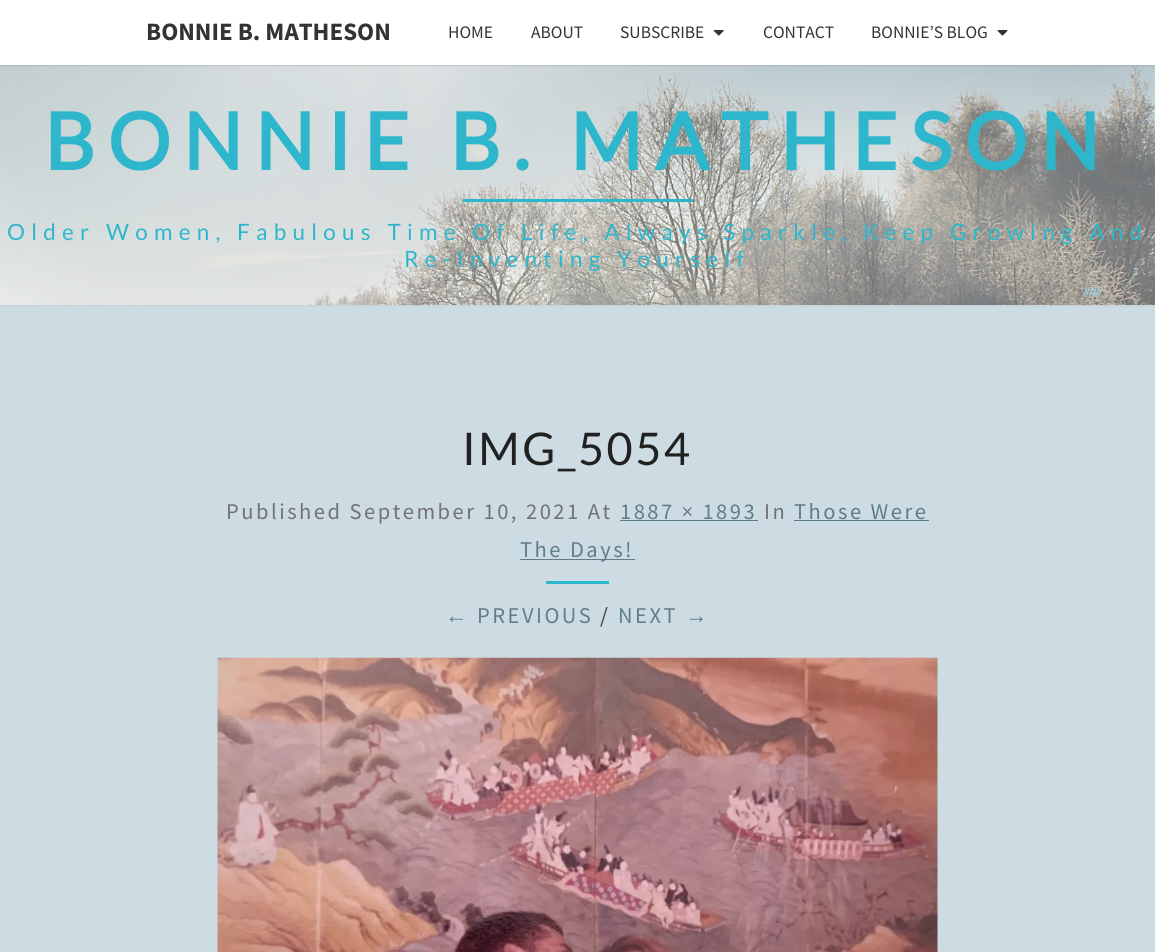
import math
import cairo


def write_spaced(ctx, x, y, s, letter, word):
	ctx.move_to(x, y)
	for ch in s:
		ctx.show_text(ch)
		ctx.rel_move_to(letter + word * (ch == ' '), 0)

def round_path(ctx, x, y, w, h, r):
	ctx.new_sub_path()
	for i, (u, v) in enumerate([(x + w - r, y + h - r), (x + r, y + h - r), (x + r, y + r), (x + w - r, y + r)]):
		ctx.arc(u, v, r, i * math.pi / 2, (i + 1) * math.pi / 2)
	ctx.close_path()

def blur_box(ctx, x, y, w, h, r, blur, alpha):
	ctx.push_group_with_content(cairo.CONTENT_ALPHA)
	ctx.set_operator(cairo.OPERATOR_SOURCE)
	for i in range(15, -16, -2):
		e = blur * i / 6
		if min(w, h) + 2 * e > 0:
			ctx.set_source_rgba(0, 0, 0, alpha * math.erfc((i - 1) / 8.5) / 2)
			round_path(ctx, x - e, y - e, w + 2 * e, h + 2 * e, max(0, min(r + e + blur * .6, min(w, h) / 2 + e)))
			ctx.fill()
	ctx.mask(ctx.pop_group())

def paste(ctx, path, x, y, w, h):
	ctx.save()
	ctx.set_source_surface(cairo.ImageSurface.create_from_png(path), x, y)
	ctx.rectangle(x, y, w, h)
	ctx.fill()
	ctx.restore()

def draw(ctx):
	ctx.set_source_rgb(0.8, 0.863, 0.886)
	ctx.paint()
	ctx.set_source_rgb(0.714, 0.714, 0.714)
	blur_box(ctx, -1, 64, 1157, 242, 0, 1, 0.3)
	paste(ctx, 'media/3.png', 0, 65, 1155, 240)
	ctx.set_source_rgb(0.392, 0.392, 0.392)
	blur_box(ctx, 0, 1, 1155, 65, 0, 0.5, 0.2)
	ctx.set_source_rgb(1, 1, 1)
	ctx.rectangle(0, 0, 1155, 65)
	ctx.fill()
	ctx.select_font_face('Source Sans Pro', cairo.FONT_SLANT_NORMAL, cairo.FONT_WEIGHT_BOLD)
	ctx.set_font_size(25)
	ctx.set_source_rgb(0.2, 0.2, 0.2)
	ctx.move_to(146, 40)
	ctx.show_text('BONNIE B. MATHESON')
	ctx.select_font_face('Source Sans Pro')
	ctx.set_font_size(17.5)
	for x, y, s in [
		(448, 38, 'HOME'),
		(531, 38, 'ABOUT'),
		(620, 38, 'SUBSCRIBE'),
	]:
		ctx.move_to(x, y)
		ctx.show_text(s)
	paste(ctx, 'media/1.png', 713, 30, 11, 6)
	ctx.move_to(763, 38)
	ctx.show_text('CONTACT')
	ctx.move_to(871, 38)
	ctx.show_text('BONNIE’S BLOG')
	paste(ctx, 'media/2.png', 997, 30, 11, 6)
	ctx.select_font_face('Lato', cairo.FONT_SLANT_NORMAL, cairo.FONT_WEIGHT_BOLD)
	ctx.set_font_size(78.75)
	ctx.set_source_rgb(0.18, 0.718, 0.8)
	write_spaced(ctx, 44, 170, 'BONNIE B. MATHESON', 12.5, 0)
	ctx.rectangle(463, 199, 230, 3)
	ctx.fill()
	ctx.select_font_face('Lato')
	ctx.set_font_size(22.5)
	write_spaced(ctx, 7, 240, 'Older Women, Fabulous Time Of Life, Always Sparkle, Keep Growing And', 6.25, 0)
	write_spaced(ctx, 404, 267, 'Re-Inventing Yourself', 6.25, 0)
	ctx.set_font_size(45)
	ctx.set_source_rgb(0.129, 0.129, 0.129)
	write_spaced(ctx, 462, 465, 'IMG_5054', 2.5, 0)
	ctx.select_font_face('Source Sans Pro')
	ctx.set_font_size(22.5)
	ctx.set_source_rgb(0.447, 0.447, 0.447)
	write_spaced(ctx, 226, 519, 'Published September 10, 2021 At', 2.5, 0)
	ctx.set_source_rgb(0.376, 0.49, 0.545)
	write_spaced(ctx, 620, 519, '1887 × 1893', 2.5, 0)
	ctx.rectangle(620, 520, 138, 1)
	ctx.fill()
	ctx.set_source_rgb(0.447, 0.447, 0.447)
	write_spaced(ctx, 764, 519, 'In', 2.5, 0)
	ctx.set_source_rgb(0.376, 0.49, 0.545)
	write_spaced(ctx, 794, 519, 'Those Were', 2.5, 0)
	ctx.rectangle(794, 520, 135, 1)
	ctx.fill()
	ctx.rectangle(520, 559, 115, 1)
	ctx.fill()
	write_spaced(ctx, 520, 557, 'The Days!', 2.5, 0)
	ctx.set_source_rgb(0.18, 0.718, 0.8)
	ctx.rectangle(546, 581, 63, 3)
	ctx.fill()
	ctx.select_font_face('Liberation Sans')
	ctx.set_source_rgb(0.376, 0.49, 0.545)
	write_spaced(ctx, 445, 623, '←', 2.5, 0)
	ctx.select_font_face('Source Sans Pro')
	write_spaced(ctx, 477, 623, 'PREVIOUS', 2.5, 0)
	ctx.set_source_rgb(0.259, 0.259, 0.259)
	write_spaced(ctx, 600, 623, '/', 2.5, 0)
	ctx.set_source_rgb(0.376, 0.49, 0.545)
	write_spaced(ctx, 618, 623, 'NEXT', 2.5, 0)
	ctx.select_font_face('Liberation Sans')
	write_spaced(ctx, 685, 623, '→', 2.5, 0)
	paste(ctx, 'media/4.png', 217, 657, 721, 295)


surface = cairo.ImageSurface(cairo.FORMAT_RGB24, 1155, 952)
ctx = cairo.Context(surface)
options = cairo.FontOptions()
options.set_hint_metrics(cairo.HINT_METRICS_OFF)
options.set_hint_style(cairo.HINT_STYLE_NONE)
ctx.set_font_options(options)
ctx.set_miter_limit(4)
draw(ctx)
surface.write_to_png('image.png')
